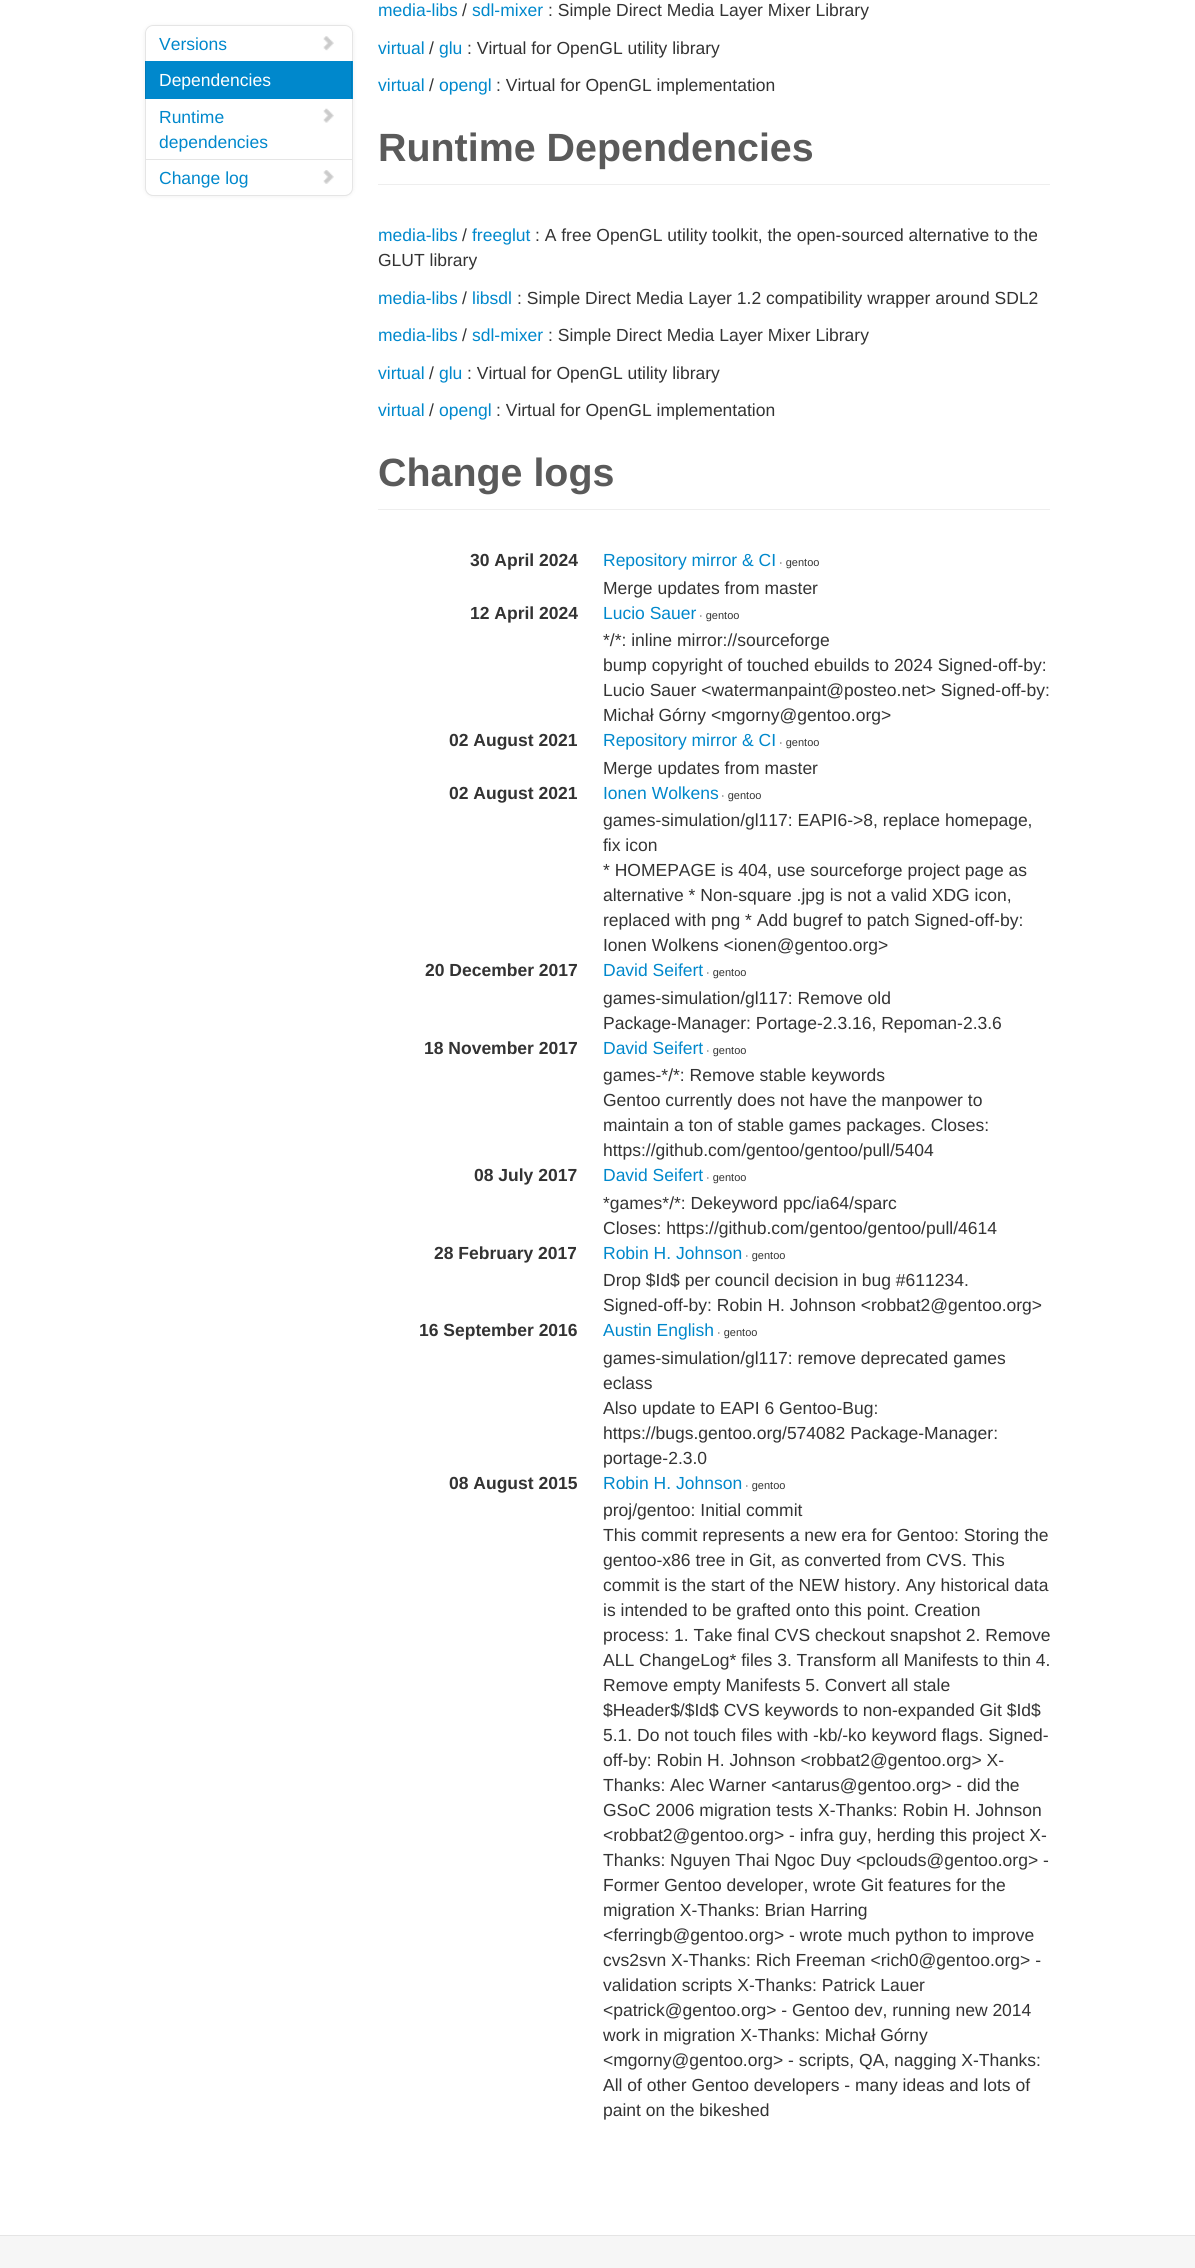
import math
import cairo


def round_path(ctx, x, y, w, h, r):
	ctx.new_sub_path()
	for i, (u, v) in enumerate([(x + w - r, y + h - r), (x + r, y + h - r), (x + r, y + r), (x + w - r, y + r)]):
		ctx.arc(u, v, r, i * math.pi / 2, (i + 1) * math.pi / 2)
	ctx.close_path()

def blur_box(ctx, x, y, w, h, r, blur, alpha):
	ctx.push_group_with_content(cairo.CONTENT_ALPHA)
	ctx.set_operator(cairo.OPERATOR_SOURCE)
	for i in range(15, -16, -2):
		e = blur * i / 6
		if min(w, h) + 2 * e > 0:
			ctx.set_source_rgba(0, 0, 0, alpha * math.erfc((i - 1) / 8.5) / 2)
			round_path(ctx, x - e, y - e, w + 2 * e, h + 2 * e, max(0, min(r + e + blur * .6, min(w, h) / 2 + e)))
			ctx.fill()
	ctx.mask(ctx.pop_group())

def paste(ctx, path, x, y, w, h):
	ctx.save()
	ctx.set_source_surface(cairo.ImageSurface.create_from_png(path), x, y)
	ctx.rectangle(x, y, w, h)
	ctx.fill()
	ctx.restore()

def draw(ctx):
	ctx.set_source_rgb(1, 1, 1)
	ctx.paint()
	ctx.set_source_rgb(0, 0, 0)
	blur_box(ctx, 145, 26, 208, 170, 8, 2.5, 0.07)
	ctx.set_source_rgb(1, 1, 1)
	round_path(ctx, 145, 25, 208, 170, 8)
	ctx.fill()
	ctx.new_path()
	ctx.move_to(153, 25.5)
	ctx.line_to(345, 25.5)
	ctx.curve_to(349, 25.5, 352.5, 29, 352.5, 33)
	ctx.line_to(352.5, 62.5)
	ctx.line_to(145.5, 62.5)
	ctx.line_to(145.5, 33)
	ctx.curve_to(145.5, 29, 149, 25.5, 153, 25.5)
	ctx.close_path()
	ctx.set_source_rgb(0.898, 0.898, 0.898)
	ctx.set_line_width(1)
	ctx.stroke()
	ctx.select_font_face('Liberation Sans')
	ctx.set_font_size(17.5)
	ctx.set_source_rgb(0, 0.533, 0.8)
	ctx.move_to(159, 50)
	ctx.show_text('Versions')
	paste(ctx, 'media/1.png', 323, 36, 11, 15)
	ctx.rectangle(145.5, 98.5, 207, 61)
	ctx.set_source_rgb(0.898, 0.898, 0.898)
	ctx.stroke()
	ctx.set_source_rgb(0, 0.533, 0.8)
	ctx.rectangle(146, 61, 207, 38)
	ctx.fill()
	ctx.set_source_rgb(0, 0.478, 0.722)
	ctx.rectangle(351, 61, 1, 38)
	ctx.rectangle(145, 61, 1, 38)
	ctx.fill()
	ctx.set_source_rgb(1, 1, 1)
	ctx.move_to(159, 86)
	ctx.show_text('Dependencies')
	ctx.set_source_rgb(0, 0.533, 0.8)
	ctx.move_to(159, 123)
	ctx.show_text('Runtime')
	paste(ctx, 'media/2.png', 323, 108, 11, 15)
	ctx.move_to(159, 148)
	ctx.show_text('dependencies')
	ctx.new_path()
	ctx.move_to(145.5, 159.5)
	ctx.line_to(352.5, 159.5)
	ctx.line_to(352.5, 188)
	ctx.curve_to(352.5, 192, 349, 195.5, 345, 195.5)
	ctx.line_to(153, 195.5)
	ctx.curve_to(149, 195.5, 145.5, 192, 145.5, 188)
	ctx.close_path()
	ctx.set_source_rgb(0.898, 0.898, 0.898)
	ctx.stroke()
	ctx.set_source_rgb(0, 0.533, 0.8)
	ctx.move_to(159, 184)
	ctx.show_text('Change log')
	paste(ctx, 'media/3.png', 323, 170, 11, 14)
	ctx.move_to(378, 16)
	ctx.show_text('media-libs')
	ctx.set_source_rgb(0.2, 0.2, 0.2)
	ctx.move_to(462, 16)
	ctx.show_text('/')
	ctx.set_source_rgb(0, 0.533, 0.8)
	ctx.move_to(472, 16)
	ctx.show_text('sdl-mixer')
	ctx.set_source_rgb(0.2, 0.2, 0.2)
	ctx.move_to(548, 16)
	ctx.show_text(': Simple Direct Media Layer Mixer Library')
	ctx.set_source_rgb(0, 0.533, 0.8)
	ctx.move_to(378, 54)
	ctx.show_text('virtual')
	ctx.set_source_rgb(0.2, 0.2, 0.2)
	ctx.move_to(429, 54)
	ctx.show_text('/')
	ctx.set_source_rgb(0, 0.533, 0.8)
	ctx.move_to(439, 54)
	ctx.show_text('glu')
	ctx.set_source_rgb(0.2, 0.2, 0.2)
	ctx.move_to(467, 54)
	ctx.show_text(': Virtual for OpenGL utility library')
	ctx.set_source_rgb(0, 0.533, 0.8)
	ctx.move_to(378, 91)
	ctx.show_text('virtual')
	ctx.set_source_rgb(0.2, 0.2, 0.2)
	ctx.move_to(429, 91)
	ctx.show_text('/')
	ctx.set_source_rgb(0, 0.533, 0.8)
	ctx.move_to(439, 91)
	ctx.show_text('opengl')
	ctx.set_source_rgb(0.2, 0.2, 0.2)
	ctx.move_to(496, 91)
	ctx.show_text(': Virtual for OpenGL implementation')
	ctx.set_source_rgb(0.933, 0.933, 0.933)
	ctx.rectangle(378, 184, 672, 1)
	ctx.fill()
	ctx.select_font_face('Liberation Sans', cairo.FONT_SLANT_NORMAL, cairo.FONT_WEIGHT_BOLD)
	ctx.set_font_size(39.4)
	ctx.set_source_rgb(0.353, 0.353, 0.353)
	ctx.move_to(378, 161)
	ctx.show_text('Runtime Dependencies')
	ctx.select_font_face('Liberation Sans')
	ctx.set_font_size(17.5)
	ctx.set_source_rgb(0, 0.533, 0.8)
	ctx.move_to(378, 241)
	ctx.show_text('media-libs')
	ctx.set_source_rgb(0.2, 0.2, 0.2)
	ctx.move_to(462, 241)
	ctx.show_text('/')
	ctx.set_source_rgb(0, 0.533, 0.8)
	ctx.move_to(472, 241)
	ctx.show_text('freeglut')
	ctx.set_source_rgb(0.2, 0.2, 0.2)
	ctx.move_to(535, 241)
	ctx.show_text(': A free OpenGL utility toolkit, the open-sourced alternative to the')
	ctx.move_to(378, 266)
	ctx.show_text('GLUT library')
	ctx.set_source_rgb(0, 0.533, 0.8)
	ctx.move_to(378, 304)
	ctx.show_text('media-libs')
	ctx.set_source_rgb(0.2, 0.2, 0.2)
	ctx.move_to(462, 304)
	ctx.show_text('/')
	ctx.set_source_rgb(0, 0.533, 0.8)
	ctx.move_to(472, 304)
	ctx.show_text('libsdl')
	ctx.set_source_rgb(0.2, 0.2, 0.2)
	ctx.move_to(517, 304)
	ctx.show_text(': Simple Direct Media Layer 1.2 compatibility wrapper around SDL2')
	ctx.set_source_rgb(0, 0.533, 0.8)
	ctx.move_to(378, 341)
	ctx.show_text('media-libs')
	ctx.set_source_rgb(0.2, 0.2, 0.2)
	ctx.move_to(462, 341)
	ctx.show_text('/')
	ctx.set_source_rgb(0, 0.533, 0.8)
	ctx.move_to(472, 341)
	ctx.show_text('sdl-mixer')
	ctx.set_source_rgb(0.2, 0.2, 0.2)
	ctx.move_to(548, 341)
	ctx.show_text(': Simple Direct Media Layer Mixer Library')
	ctx.set_source_rgb(0, 0.533, 0.8)
	ctx.move_to(378, 379)
	ctx.show_text('virtual')
	ctx.set_source_rgb(0.2, 0.2, 0.2)
	ctx.move_to(429, 379)
	ctx.show_text('/')
	ctx.set_source_rgb(0, 0.533, 0.8)
	ctx.move_to(439, 379)
	ctx.show_text('glu')
	ctx.set_source_rgb(0.2, 0.2, 0.2)
	ctx.move_to(467, 379)
	ctx.show_text(': Virtual for OpenGL utility library')
	ctx.set_source_rgb(0, 0.533, 0.8)
	ctx.move_to(378, 416)
	ctx.show_text('virtual')
	ctx.set_source_rgb(0.2, 0.2, 0.2)
	ctx.move_to(429, 416)
	ctx.show_text('/')
	ctx.set_source_rgb(0, 0.533, 0.8)
	ctx.move_to(439, 416)
	ctx.show_text('opengl')
	ctx.set_source_rgb(0.2, 0.2, 0.2)
	ctx.move_to(496, 416)
	ctx.show_text(': Virtual for OpenGL implementation')
	ctx.set_source_rgb(0.933, 0.933, 0.933)
	ctx.rectangle(378, 509, 672, 1)
	ctx.fill()
	ctx.select_font_face('Liberation Sans', cairo.FONT_SLANT_NORMAL, cairo.FONT_WEIGHT_BOLD)
	ctx.set_font_size(39.4)
	ctx.set_source_rgb(0.353, 0.353, 0.353)
	ctx.move_to(378, 486)
	ctx.show_text('Change logs')
	ctx.set_font_size(17.5)
	ctx.set_source_rgb(0.2, 0.2, 0.2)
	ctx.move_to(470, 566)
	ctx.show_text('30 April 2024')
	ctx.select_font_face('Liberation Sans')
	ctx.set_source_rgb(0, 0.533, 0.8)
	ctx.move_to(603, 566)
	ctx.show_text('Repository mirror & CI')
	ctx.set_font_size(11)
	ctx.set_source_rgb(0.2, 0.2, 0.2)
	ctx.move_to(779, 566)
	ctx.show_text('· gentoo')
	ctx.set_font_size(17.5)
	ctx.move_to(603, 594)
	ctx.show_text('Merge updates from master')
	ctx.select_font_face('Liberation Sans', cairo.FONT_SLANT_NORMAL, cairo.FONT_WEIGHT_BOLD)
	ctx.move_to(470, 619)
	ctx.show_text('12 April 2024')
	ctx.select_font_face('Liberation Sans')
	ctx.set_source_rgb(0, 0.533, 0.8)
	ctx.move_to(603, 619)
	ctx.show_text('Lucio Sauer')
	ctx.set_font_size(11)
	ctx.set_source_rgb(0.2, 0.2, 0.2)
	ctx.move_to(699, 619)
	ctx.show_text('· gentoo')
	ctx.set_font_size(17.5)
	for x, y, s in [
		(603, 646, '*/*: inline mirror://sourceforge'),
		(603, 671, 'bump copyright of touched ebuilds to 2024 Signed-off-by:'),
		(603, 696, 'Lucio Sauer <watermanpaint@posteo.net> Signed-off-by:'),
		(603, 721, 'Michał Górny <mgorny@gentoo.org>'),
	]:
		ctx.move_to(x, y)
		ctx.show_text(s)
	ctx.select_font_face('Liberation Sans', cairo.FONT_SLANT_NORMAL, cairo.FONT_WEIGHT_BOLD)
	ctx.move_to(449, 746)
	ctx.show_text('02 August 2021')
	ctx.select_font_face('Liberation Sans')
	ctx.set_source_rgb(0, 0.533, 0.8)
	ctx.move_to(603, 746)
	ctx.show_text('Repository mirror & CI')
	ctx.set_font_size(11)
	ctx.set_source_rgb(0.2, 0.2, 0.2)
	ctx.move_to(779, 746)
	ctx.show_text('· gentoo')
	ctx.set_font_size(17.5)
	ctx.move_to(603, 774)
	ctx.show_text('Merge updates from master')
	ctx.select_font_face('Liberation Sans', cairo.FONT_SLANT_NORMAL, cairo.FONT_WEIGHT_BOLD)
	ctx.move_to(449, 799)
	ctx.show_text('02 August 2021')
	ctx.select_font_face('Liberation Sans')
	ctx.set_source_rgb(0, 0.533, 0.8)
	ctx.move_to(603, 799)
	ctx.show_text('Ionen Wolkens')
	ctx.set_font_size(11)
	ctx.set_source_rgb(0.2, 0.2, 0.2)
	ctx.move_to(721, 799)
	ctx.show_text('· gentoo')
	ctx.set_font_size(17.5)
	for x, y, s in [
		(603, 826, 'games-simulation/gl117: EAPI6->8, replace homepage,'),
		(603, 851, 'fix icon'),
		(603, 876, '* HOMEPAGE is 404, use sourceforge project page as'),
		(603, 901, 'alternative * Non-square .jpg is not a valid XDG icon,'),
		(603, 926, 'replaced with png * Add bugref to patch Signed-off-by:'),
		(603, 951, 'Ionen Wolkens <ionen@gentoo.org>'),
	]:
		ctx.move_to(x, y)
		ctx.show_text(s)
	ctx.select_font_face('Liberation Sans', cairo.FONT_SLANT_NORMAL, cairo.FONT_WEIGHT_BOLD)
	ctx.move_to(425, 976)
	ctx.show_text('20 December 2017')
	ctx.select_font_face('Liberation Sans')
	ctx.set_source_rgb(0, 0.533, 0.8)
	ctx.move_to(603, 976)
	ctx.show_text('David Seifert')
	ctx.set_font_size(11)
	ctx.set_source_rgb(0.2, 0.2, 0.2)
	ctx.move_to(706, 976)
	ctx.show_text('· gentoo')
	ctx.set_font_size(17.5)
	ctx.move_to(603, 1004)
	ctx.show_text('games-simulation/gl117: Remove old')
	ctx.move_to(603, 1029)
	ctx.show_text('Package-Manager: Portage-2.3.16, Repoman-2.3.6')
	ctx.select_font_face('Liberation Sans', cairo.FONT_SLANT_NORMAL, cairo.FONT_WEIGHT_BOLD)
	ctx.move_to(424, 1054)
	ctx.show_text('18 November 2017')
	ctx.select_font_face('Liberation Sans')
	ctx.set_source_rgb(0, 0.533, 0.8)
	ctx.move_to(603, 1054)
	ctx.show_text('David Seifert')
	ctx.set_font_size(11)
	ctx.set_source_rgb(0.2, 0.2, 0.2)
	ctx.move_to(706, 1054)
	ctx.show_text('· gentoo')
	ctx.set_font_size(17.5)
	for x, y, s in [
		(603, 1081, 'games-*/*: Remove stable keywords'),
		(603, 1106, 'Gentoo currently does not have the manpower to'),
		(603, 1131, 'maintain a ton of stable games packages. Closes:'),
		(603, 1156, 'https://github.com/gentoo/gentoo/pull/5404'),
	]:
		ctx.move_to(x, y)
		ctx.show_text(s)
	ctx.select_font_face('Liberation Sans', cairo.FONT_SLANT_NORMAL, cairo.FONT_WEIGHT_BOLD)
	ctx.move_to(474, 1181)
	ctx.show_text('08 July 2017')
	ctx.select_font_face('Liberation Sans')
	ctx.set_source_rgb(0, 0.533, 0.8)
	ctx.move_to(603, 1181)
	ctx.show_text('David Seifert')
	ctx.set_font_size(11)
	ctx.set_source_rgb(0.2, 0.2, 0.2)
	ctx.move_to(706, 1181)
	ctx.show_text('· gentoo')
	ctx.set_font_size(17.5)
	ctx.move_to(603, 1209)
	ctx.show_text('*games*/*: Dekeyword ppc/ia64/sparc')
	ctx.move_to(603, 1234)
	ctx.show_text('Closes: https://github.com/gentoo/gentoo/pull/4614')
	ctx.select_font_face('Liberation Sans', cairo.FONT_SLANT_NORMAL, cairo.FONT_WEIGHT_BOLD)
	ctx.move_to(434, 1259)
	ctx.show_text('28 February 2017')
	ctx.select_font_face('Liberation Sans')
	ctx.set_source_rgb(0, 0.533, 0.8)
	ctx.move_to(603, 1259)
	ctx.show_text('Robin H. Johnson')
	ctx.set_font_size(11)
	ctx.set_source_rgb(0.2, 0.2, 0.2)
	ctx.move_to(745, 1259)
	ctx.show_text('· gentoo')
	ctx.set_font_size(17.5)
	ctx.move_to(603, 1286)
	ctx.show_text('Drop $Id$ per council decision in bug #611234.')
	ctx.move_to(603, 1311)
	ctx.show_text('Signed-off-by: Robin H. Johnson <robbat2@gentoo.org>')
	ctx.select_font_face('Liberation Sans', cairo.FONT_SLANT_NORMAL, cairo.FONT_WEIGHT_BOLD)
	ctx.move_to(419, 1336)
	ctx.show_text('16 September 2016')
	ctx.select_font_face('Liberation Sans')
	ctx.set_source_rgb(0, 0.533, 0.8)
	ctx.move_to(603, 1336)
	ctx.show_text('Austin English')
	ctx.set_font_size(11)
	ctx.set_source_rgb(0.2, 0.2, 0.2)
	ctx.move_to(717, 1336)
	ctx.show_text('· gentoo')
	ctx.set_font_size(17.5)
	for x, y, s in [
		(603, 1364, 'games-simulation/gl117: remove deprecated games'),
		(603, 1389, 'eclass'),
		(603, 1414, 'Also update to EAPI 6 Gentoo-Bug:'),
		(603, 1439, 'https://bugs.gentoo.org/574082 Package-Manager:'),
		(603, 1464, 'portage-2.3.0'),
	]:
		ctx.move_to(x, y)
		ctx.show_text(s)
	ctx.select_font_face('Liberation Sans', cairo.FONT_SLANT_NORMAL, cairo.FONT_WEIGHT_BOLD)
	ctx.move_to(449, 1489)
	ctx.show_text('08 August 2015')
	ctx.select_font_face('Liberation Sans')
	ctx.set_source_rgb(0, 0.533, 0.8)
	ctx.move_to(603, 1489)
	ctx.show_text('Robin H. Johnson')
	ctx.set_font_size(11)
	ctx.set_source_rgb(0.2, 0.2, 0.2)
	ctx.move_to(745, 1489)
	ctx.show_text('· gentoo')
	ctx.set_font_size(17.5)
	for x, y, s in [
		(603, 1516, 'proj/gentoo: Initial commit'),
		(603, 1541, 'This commit represents a new era for Gentoo: Storing the'),
		(603, 1566, 'gentoo-x86 tree in Git, as converted from CVS. This'),
		(603, 1591, 'commit is the start of the NEW history. Any historical data'),
		(603, 1616, 'is intended to be grafted onto this point. Creation'),
		(603, 1641, 'process: 1. Take final CVS checkout snapshot 2. Remove'),
		(603, 1666, 'ALL ChangeLog* files 3. Transform all Manifests to thin 4.'),
		(603, 1691, 'Remove empty Manifests 5. Convert all stale'),
		(603, 1716, '$Header$/$Id$ CVS keywords to non-expanded Git $Id$'),
		(603, 1741, '5.1. Do not touch files with -kb/-ko keyword flags. Signed-'),
		(603, 1766, 'off-by: Robin H. Johnson <robbat2@gentoo.org> X-'),
		(603, 1791, 'Thanks: Alec Warner <antarus@gentoo.org> - did the'),
		(603, 1816, 'GSoC 2006 migration tests X-Thanks: Robin H. Johnson'),
		(603, 1841, '<robbat2@gentoo.org> - infra guy, herding this project X-'),
		(603, 1866, 'Thanks: Nguyen Thai Ngoc Duy <pclouds@gentoo.org> -'),
		(603, 1891, 'Former Gentoo developer, wrote Git features for the'),
		(603, 1916, 'migration X-Thanks: Brian Harring'),
		(603, 1941, '<ferringb@gentoo.org> - wrote much python to improve'),
		(603, 1966, 'cvs2svn X-Thanks: Rich Freeman <rich0@gentoo.org> -'),
		(603, 1991, 'validation scripts X-Thanks: Patrick Lauer'),
		(603, 2016, '<patrick@gentoo.org> - Gentoo dev, running new 2014'),
		(603, 2041, 'work in migration X-Thanks: Michał Górny'),
		(603, 2066, '<mgorny@gentoo.org> - scripts, QA, nagging X-Thanks:'),
		(603, 2091, 'All of other Gentoo developers - many ideas and lots of'),
		(603, 2116, 'paint on the bikeshed'),
	]:
		ctx.move_to(x, y)
		ctx.show_text(s)
	ctx.set_source_rgb(0.961, 0.961, 0.961)
	ctx.rectangle(0, 2236, 1195, 32)
	ctx.fill()
	ctx.set_source_rgb(0.898, 0.898, 0.898)
	ctx.rectangle(0, 2235, 1195, 1)
	ctx.fill()


surface = cairo.ImageSurface(cairo.FORMAT_RGB24, 1195, 2268)
ctx = cairo.Context(surface)
options = cairo.FontOptions()
options.set_hint_metrics(cairo.HINT_METRICS_OFF)
options.set_hint_style(cairo.HINT_STYLE_NONE)
ctx.set_font_options(options)
ctx.set_miter_limit(4)
draw(ctx)
surface.write_to_png('image.png')
